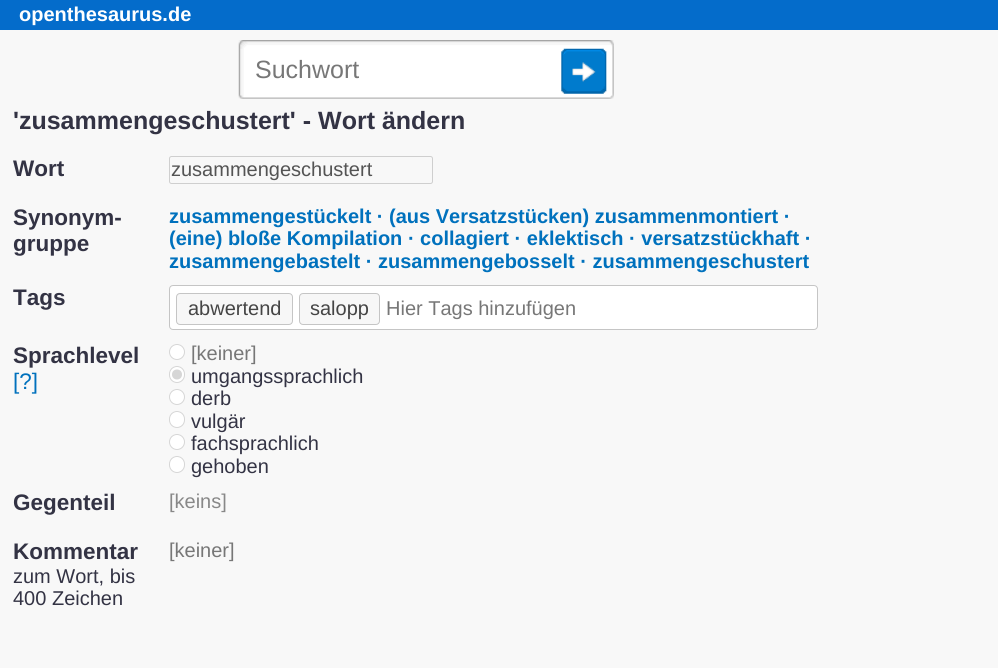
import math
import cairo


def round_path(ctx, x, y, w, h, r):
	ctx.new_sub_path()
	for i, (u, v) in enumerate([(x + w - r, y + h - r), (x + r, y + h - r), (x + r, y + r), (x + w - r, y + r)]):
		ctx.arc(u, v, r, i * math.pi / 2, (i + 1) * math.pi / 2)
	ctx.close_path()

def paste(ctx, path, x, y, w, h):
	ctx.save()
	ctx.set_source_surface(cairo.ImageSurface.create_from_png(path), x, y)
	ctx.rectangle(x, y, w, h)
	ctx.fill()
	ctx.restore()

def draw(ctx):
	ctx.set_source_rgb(0.969, 0.969, 0.969)
	ctx.paint()
	ctx.set_source_rgb(0.016, 0.424, 0.796)
	ctx.rectangle(0, 0, 998, 30)
	ctx.fill()
	ctx.select_font_face('Liberation Sans', cairo.FONT_SLANT_NORMAL, cairo.FONT_WEIGHT_BOLD)
	ctx.set_font_size(20)
	ctx.set_source_rgb(1, 1, 1)
	ctx.move_to(19, 21)
	ctx.show_text('openthesaurus.de')
	paste(ctx, 'media/1.png', 238, 40, 376, 59)
	ctx.select_font_face('Liberation Sans')
	ctx.set_font_size(25)
	ctx.set_source_rgb(0.467, 0.467, 0.467)
	ctx.move_to(255, 78)
	ctx.show_text('Suchwort')
	paste(ctx, 'media/2.png', 561, 48, 46, 46)
	ctx.select_font_face('Liberation Sans', cairo.FONT_SLANT_NORMAL, cairo.FONT_WEIGHT_BOLD)
	ctx.set_source_rgb(0.2, 0.2, 0.267)
	ctx.move_to(13, 129)
	ctx.show_text('\'zusammengeschustert\' - Wort ändern')
	ctx.set_font_size(22.5)
	ctx.move_to(13, 176)
	ctx.show_text('Wort')
	round_path(ctx, 169.5, 156.5, 263, 27, 2)
	ctx.set_source_rgb(0.812, 0.812, 0.812)
	ctx.set_line_width(1)
	ctx.stroke()
	ctx.select_font_face('Liberation Sans')
	ctx.set_font_size(20)
	ctx.set_source_rgb(0.329, 0.329, 0.329)
	ctx.move_to(171, 176)
	ctx.show_text('zusammengeschustert')
	ctx.select_font_face('Liberation Sans', cairo.FONT_SLANT_NORMAL, cairo.FONT_WEIGHT_BOLD)
	ctx.set_font_size(22.5)
	ctx.set_source_rgb(0.2, 0.2, 0.267)
	ctx.move_to(13, 225)
	ctx.show_text('Synonym-')
	ctx.move_to(13, 251)
	ctx.show_text('gruppe')
	ctx.set_font_size(20)
	ctx.set_source_rgb(0, 0.443, 0.741)
	for x, y, s in [
		(169, 223, 'zusammengestückelt · (aus Versatzstücken) zusammenmontiert ·'),
		(169, 245, '(eine) bloße Kompilation · collagiert · eklektisch · versatzstückhaft ·'),
		(169, 268, 'zusammengebastelt · zusammengebosselt · zusammengeschustert'),
	]:
		ctx.move_to(x, y)
		ctx.show_text(s)
	ctx.set_font_size(22.5)
	ctx.set_source_rgb(0.2, 0.2, 0.267)
	ctx.move_to(13, 305)
	ctx.show_text('Tags')
	ctx.set_source_rgb(1, 1, 1)
	round_path(ctx, 169.5, 285.5, 648, 44, 3.5)
	ctx.fill_preserve()
	ctx.set_source_rgb(0.773, 0.773, 0.773)
	ctx.stroke()
	ctx.set_source_rgb(0.965, 0.965, 0.965)
	round_path(ctx, 176.5, 293.5, 116, 31, 3.5)
	ctx.fill_preserve()
	ctx.set_source_rgb(0.773, 0.773, 0.773)
	ctx.stroke()
	ctx.select_font_face('Liberation Sans')
	ctx.set_font_size(20)
	ctx.set_source_rgb(0.271, 0.271, 0.271)
	ctx.move_to(188, 315)
	ctx.show_text('abwertend')
	ctx.set_source_rgb(0.965, 0.965, 0.965)
	round_path(ctx, 299.5, 293.5, 80, 31, 3.5)
	ctx.fill_preserve()
	ctx.set_source_rgb(0.773, 0.773, 0.773)
	ctx.stroke()
	ctx.set_source_rgb(0.271, 0.271, 0.271)
	ctx.move_to(310, 315)
	ctx.show_text('salopp')
	ctx.set_source_rgb(0.467, 0.467, 0.467)
	ctx.move_to(386, 315)
	ctx.show_text('Hier Tags hinzufügen')
	ctx.select_font_face('Liberation Sans', cairo.FONT_SLANT_NORMAL, cairo.FONT_WEIGHT_BOLD)
	ctx.set_font_size(22.5)
	ctx.set_source_rgb(0.2, 0.2, 0.267)
	ctx.move_to(13, 363)
	ctx.show_text('Sprachlevel')
	ctx.select_font_face('Liberation Sans')
	ctx.set_source_rgb(0, 0.443, 0.741)
	ctx.move_to(13, 389)
	ctx.show_text('[?]')
	ctx.set_source_rgb(1, 1, 1)
	ctx.new_path()
	ctx.arc(177, 352, 8, 0, 2 * math.pi)
	ctx.fill()
	ctx.arc(177, 352, 7.5, 0, 2 * math.pi)
	ctx.set_source_rgba(0.463, 0.463, 0.463, 0.3)
	ctx.stroke()
	ctx.set_font_size(20)
	ctx.set_source_rgb(0.467, 0.467, 0.467)
	ctx.move_to(191, 360)
	ctx.show_text('[keiner]')
	ctx.set_source_rgb(1, 1, 1)
	round_path(ctx, 169, 366, 16, 17, 8)
	ctx.fill()
	round_path(ctx, 169.5, 366.5, 15, 16, 7.5)
	ctx.set_source_rgba(0.463, 0.463, 0.463, 0.3)
	ctx.stroke()
	ctx.set_source_rgb(0.839, 0.839, 0.839)
	ctx.arc(177, 374.5, 5, 0, 2 * math.pi)
	ctx.fill()
	ctx.set_source_rgb(0.2, 0.2, 0.267)
	ctx.move_to(191, 383)
	ctx.show_text('umgangssprachlich')
	ctx.set_source_rgb(1, 1, 1)
	ctx.new_path()
	ctx.arc(177, 397, 8, 0, 2 * math.pi)
	ctx.fill()
	ctx.arc(177, 397, 7.5, 0, 2 * math.pi)
	ctx.set_source_rgba(0.463, 0.463, 0.463, 0.3)
	ctx.stroke()
	ctx.set_source_rgb(0.2, 0.2, 0.267)
	ctx.move_to(191, 405)
	ctx.show_text('derb')
	ctx.set_source_rgb(1, 1, 1)
	round_path(ctx, 169, 411, 16, 17, 8)
	ctx.fill()
	round_path(ctx, 169.5, 411.5, 15, 16, 7.5)
	ctx.set_source_rgba(0.463, 0.463, 0.463, 0.3)
	ctx.stroke()
	ctx.set_source_rgb(0.2, 0.2, 0.267)
	ctx.move_to(191, 428)
	ctx.show_text('vulgär')
	ctx.set_source_rgb(1, 1, 1)
	ctx.new_path()
	ctx.arc(177, 442, 8, 0, 2 * math.pi)
	ctx.fill()
	ctx.arc(177, 442, 7.5, 0, 2 * math.pi)
	ctx.set_source_rgba(0.463, 0.463, 0.463, 0.3)
	ctx.stroke()
	ctx.set_source_rgb(0.2, 0.2, 0.267)
	ctx.move_to(191, 450)
	ctx.show_text('fachsprachlich')
	ctx.set_source_rgb(1, 1, 1)
	round_path(ctx, 169, 456, 16, 17, 8)
	ctx.fill()
	round_path(ctx, 169.5, 456.5, 15, 16, 7.5)
	ctx.set_source_rgba(0.463, 0.463, 0.463, 0.3)
	ctx.stroke()
	ctx.set_source_rgb(0.2, 0.2, 0.267)
	ctx.move_to(191, 473)
	ctx.show_text('gehoben')
	ctx.select_font_face('Liberation Sans', cairo.FONT_SLANT_NORMAL, cairo.FONT_WEIGHT_BOLD)
	ctx.set_font_size(22.5)
	ctx.move_to(13, 510)
	ctx.show_text('Gegenteil')
	ctx.select_font_face('Liberation Sans')
	ctx.set_font_size(20)
	ctx.set_source_rgb(0.533, 0.533, 0.533)
	ctx.move_to(169, 508)
	ctx.show_text('[keins]')
	ctx.select_font_face('Liberation Sans', cairo.FONT_SLANT_NORMAL, cairo.FONT_WEIGHT_BOLD)
	ctx.set_font_size(22.5)
	ctx.set_source_rgb(0.2, 0.2, 0.267)
	ctx.move_to(13, 559)
	ctx.show_text('Kommentar')
	ctx.select_font_face('Liberation Sans')
	ctx.set_font_size(20)
	ctx.move_to(13, 583)
	ctx.show_text('zum Wort, bis')
	ctx.move_to(13, 605)
	ctx.show_text('400 Zeichen')
	ctx.set_source_rgb(0.467, 0.467, 0.467)
	ctx.move_to(169, 557)
	ctx.show_text('[keiner]')


surface = cairo.ImageSurface(cairo.FORMAT_RGB24, 998, 668)
ctx = cairo.Context(surface)
options = cairo.FontOptions()
options.set_hint_metrics(cairo.HINT_METRICS_OFF)
options.set_hint_style(cairo.HINT_STYLE_NONE)
ctx.set_font_options(options)
ctx.set_miter_limit(4)
draw(ctx)
surface.write_to_png('image.png')
